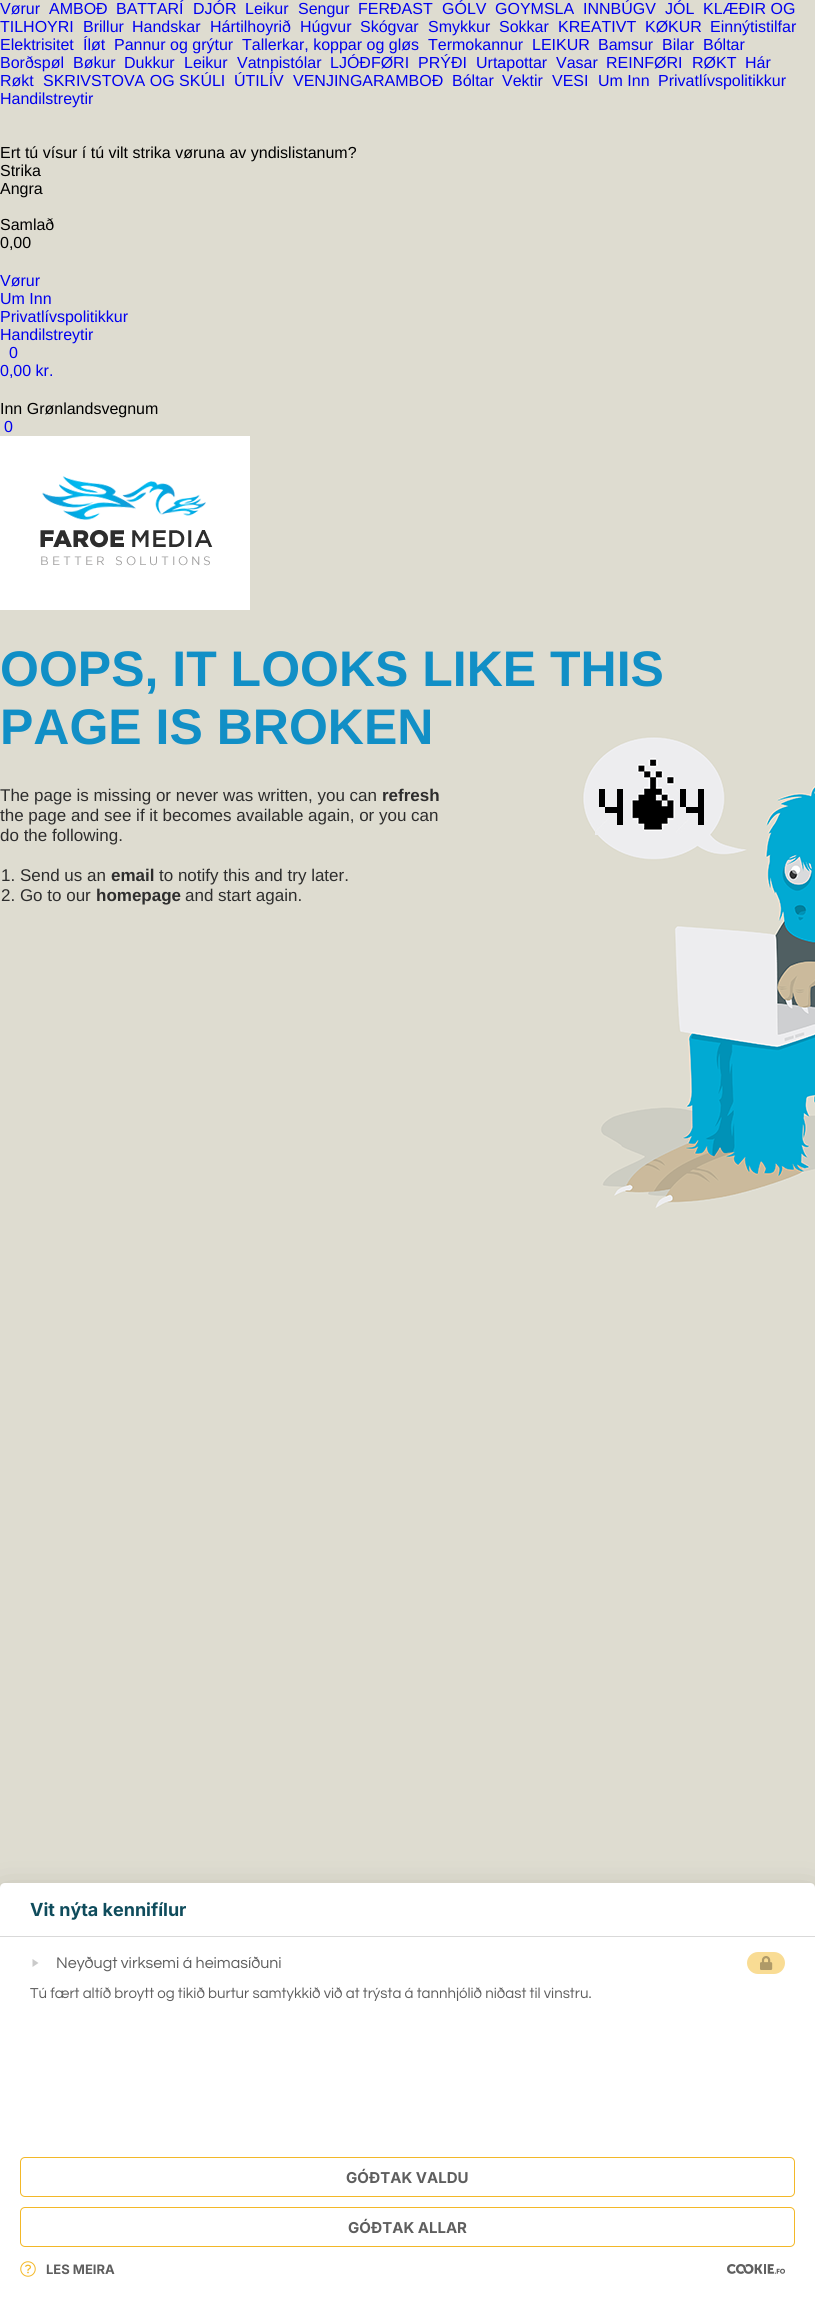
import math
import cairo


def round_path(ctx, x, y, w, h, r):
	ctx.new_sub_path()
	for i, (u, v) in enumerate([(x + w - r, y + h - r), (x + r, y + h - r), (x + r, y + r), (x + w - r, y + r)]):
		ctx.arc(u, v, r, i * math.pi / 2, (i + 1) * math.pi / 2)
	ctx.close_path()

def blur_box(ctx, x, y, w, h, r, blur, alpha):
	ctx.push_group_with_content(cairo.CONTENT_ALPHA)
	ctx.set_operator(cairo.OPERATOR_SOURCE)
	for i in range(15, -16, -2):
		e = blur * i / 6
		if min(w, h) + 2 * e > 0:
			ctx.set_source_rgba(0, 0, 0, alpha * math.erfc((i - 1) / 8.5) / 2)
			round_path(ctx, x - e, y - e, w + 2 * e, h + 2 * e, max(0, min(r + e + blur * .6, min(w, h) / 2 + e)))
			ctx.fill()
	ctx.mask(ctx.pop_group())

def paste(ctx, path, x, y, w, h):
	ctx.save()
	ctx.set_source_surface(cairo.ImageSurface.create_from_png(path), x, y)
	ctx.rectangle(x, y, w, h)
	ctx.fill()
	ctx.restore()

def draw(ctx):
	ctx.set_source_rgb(0.871, 0.863, 0.816)
	ctx.paint()
	ctx.select_font_face('Liberation Sans')
	ctx.set_font_size(16)
	ctx.set_source_rgb(0, 0, 0.933)
	for x, y, s in [
		(0, 14, 'Vørur'),
		(49, 14, 'AMBOÐ'),
		(116, 14, 'BATTARÍ'),
		(193, 14, 'DJÓR'),
		(245, 14, 'Leikur'),
		(298, 14, 'Sengur'),
		(358, 14, 'FERÐAST'),
		(442, 14, 'GÓLV'),
		(495, 14, 'GOYMSLA'),
		(583, 14, 'INNBÚGV'),
		(665, 14, 'JÓL'),
		(703, 14, 'KLÆÐIR OG'),
		(0, 32, 'TILHOYRI'),
		(83, 32, 'Brillur'),
		(132, 32, 'Handskar'),
		(210, 32, 'Hártilhoyrið'),
		(300, 32, 'Húgvur'),
		(360, 32, 'Skógvar'),
		(428, 32, 'Smykkur'),
		(499, 32, 'Sokkar'),
		(558, 32, 'KREATIVT'),
		(645, 32, 'KØKUR'),
		(710, 32, 'Einnýtistilfar'),
		(0, 50, 'Elektrisitet'),
		(83, 50, 'Íløt'),
		(114, 50, 'Pannur og grýtur'),
		(242, 50, 'Tallerkar, koppar og gløs'),
		(428, 50, 'Termokannur'),
		(532, 50, 'LEIKUR'),
		(598, 50, 'Bamsur'),
		(662, 50, 'Bilar'),
		(703, 50, 'Bóltar'),
		(0, 68, 'Borðspøl'),
		(73, 68, 'Bøkur'),
		(124, 68, 'Dukkur'),
		(184, 68, 'Leikur'),
		(237, 68, 'Vatnpistólar'),
		(330, 68, 'LJÓÐFØRI'),
		(418, 68, 'PRÝÐI'),
		(476, 68, 'Urtapottar'),
		(556, 68, 'Vasar'),
		(606, 68, 'REINFØRI'),
		(692, 68, 'RØKT'),
		(745, 68, 'Hár'),
		(0, 86, 'Røkt'),
		(43, 86, 'SKRIVSTOVA OG SKÚLI'),
		(234, 86, 'ÚTILÍV'),
		(293, 86, 'VENJINGARAMBOÐ'),
		(452, 86, 'Bóltar'),
		(502, 86, 'Vektir'),
		(552, 86, 'VESI'),
		(598, 86, 'Um Inn'),
		(658, 86, 'Privatlívspolitikkur'),
		(0, 104, 'Handilstreytir'),
	]:
		ctx.move_to(x, y)
		ctx.show_text(s)
	ctx.set_source_rgb(0, 0, 0)
	for x, y, s in [
		(0, 158, 'Ert tú vísur í tú vilt strika vøruna av yndislistanum?'),
		(0, 176, 'Strika'),
		(0, 194, 'Angra'),
		(0, 230, 'Samlað'),
		(0, 248, '0,00'),
	]:
		ctx.move_to(x, y)
		ctx.show_text(s)
	ctx.set_source_rgb(0, 0, 0.933)
	for x, y, s in [
		(0, 286, 'Vørur'),
		(0, 304, 'Um Inn'),
		(0, 322, 'Privatlívspolitikkur'),
		(0, 340, 'Handilstreytir'),
		(9, 358, '0'),
		(0, 376, '0,00 kr.'),
	]:
		ctx.move_to(x, y)
		ctx.show_text(s)
	ctx.set_source_rgb(0, 0, 0)
	ctx.move_to(0, 414)
	ctx.show_text('Inn Grønlandsvegnum')
	ctx.set_source_rgb(0, 0, 0.933)
	ctx.move_to(4, 432)
	ctx.show_text('0')
	ctx.set_source_rgb(1, 1, 1)
	ctx.rectangle(0, 436, 250, 174)
	ctx.fill()
	paste(ctx, 'media/1.png', 40, 476, 173, 90)
	paste(ctx, 'media/2.png', 582, 736, 233, 472)
	ctx.select_font_face('Liberation Sans', cairo.FONT_SLANT_NORMAL, cairo.FONT_WEIGHT_BOLD)
	ctx.set_font_size(50)
	ctx.set_source_rgb(0.067, 0.561, 0.776)
	ctx.move_to(0, 686)
	ctx.show_text('OOPS, IT LOOKS LIKE THIS')
	ctx.move_to(0, 744)
	ctx.show_text('PAGE IS BROKEN')
	ctx.select_font_face('Liberation Sans')
	ctx.set_font_size(17)
	ctx.set_source_rgb(0.176, 0.176, 0.176)
	ctx.move_to(0, 801)
	ctx.show_text('The page is missing or never was written, you can')
	ctx.select_font_face('Liberation Sans', cairo.FONT_SLANT_NORMAL, cairo.FONT_WEIGHT_BOLD)
	ctx.move_to(382, 801)
	ctx.show_text('refresh')
	ctx.select_font_face('Liberation Sans')
	for x, y, s in [
		(0, 821, 'the page and see if it becomes available again, or you can'),
		(0, 841, 'do the following.'),
		(1, 881, '1. Send us an'),
	]:
		ctx.move_to(x, y)
		ctx.show_text(s)
	ctx.select_font_face('Liberation Sans', cairo.FONT_SLANT_NORMAL, cairo.FONT_WEIGHT_BOLD)
	ctx.move_to(111, 881)
	ctx.show_text('email')
	ctx.select_font_face('Liberation Sans')
	ctx.move_to(159, 881)
	ctx.show_text('to notify this and try later.')
	ctx.move_to(1, 901)
	ctx.show_text('2. Go to our')
	ctx.select_font_face('Liberation Sans', cairo.FONT_SLANT_NORMAL, cairo.FONT_WEIGHT_BOLD)
	ctx.move_to(96, 901)
	ctx.show_text('homepage')
	ctx.select_font_face('Liberation Sans')
	ctx.move_to(185, 901)
	ctx.show_text('and start again.')
	ctx.set_source_rgb(0, 0, 0)
	blur_box(ctx, 0, 1902, 815, 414, 5, 19, 0.3)
	ctx.set_source_rgb(1, 1, 1)
	ctx.new_path()
	ctx.move_to(5, 1883)
	ctx.line_to(810, 1883)
	ctx.curve_to(813, 1883, 815, 1885, 815, 1888)
	ctx.line_to(815, 2297)
	ctx.line_to(0, 2297)
	ctx.line_to(0, 1888)
	ctx.curve_to(0, 1885, 2, 1883, 5, 1883)
	ctx.close_path()
	ctx.fill()
	ctx.set_source_rgb(0.851, 0.851, 0.851)
	ctx.rectangle(0, 1936, 815, 1)
	ctx.fill()
	ctx.select_font_face('Inter', cairo.FONT_SLANT_NORMAL, cairo.FONT_WEIGHT_BOLD)
	ctx.set_font_size(18)
	ctx.set_source_rgb(0.059, 0.298, 0.361)
	ctx.move_to(30, 1916)
	ctx.show_text('Vit nýta kennifílur')
	ctx.set_source_rgb(0.792, 0.792, 0.792)
	ctx.new_path()
	ctx.move_to(32.5, 1959)
	ctx.line_to(38.5, 1963)
	ctx.line_to(32.5, 1967)
	ctx.close_path()
	ctx.fill()
	ctx.select_font_face('Questrial')
	ctx.set_font_size(16)
	ctx.set_source_rgb(0.369, 0.369, 0.369)
	ctx.move_to(56, 1968)
	ctx.show_text('Neyðugt virksemi á heimasíðuni')
	ctx.set_source_rgb(0.976, 0.863, 0.58)
	round_path(ctx, 747, 1952, 38, 22, 11)
	ctx.fill()
	paste(ctx, 'media/3.png', 760, 1956, 13, 14)
	ctx.set_font_size(15)
	ctx.set_source_rgb(0.369, 0.369, 0.369)
	ctx.move_to(30, 1998)
	ctx.show_text('Tú fært altíð broytt og tikið burtur samtykkið við at trýsta á tannhjólið niðast til vinstru.')
	round_path(ctx, 20.5, 2157.5, 774, 39, 4.5)
	ctx.set_source_rgb(0.953, 0.722, 0.157)
	ctx.set_line_width(1)
	ctx.stroke()
	ctx.select_font_face('Inter', cairo.FONT_SLANT_NORMAL, cairo.FONT_WEIGHT_BOLD)
	ctx.set_source_rgb(0.369, 0.369, 0.369)
	ctx.move_to(346, 2183)
	ctx.show_text('GÓÐTAK VALDU')
	round_path(ctx, 20.5, 2207.5, 774, 39, 4.5)
	ctx.set_source_rgb(0.953, 0.722, 0.157)
	ctx.stroke()
	ctx.set_source_rgb(0.369, 0.369, 0.369)
	ctx.move_to(348, 2233)
	ctx.show_text('GÓÐTAK ALLAR')
	paste(ctx, 'media/4.png', 20, 2261, 16, 16)
	ctx.set_font_size(13)
	ctx.move_to(46, 2274)
	ctx.show_text('LES MEIRA')
	paste(ctx, 'media/5.png', 727, 2264, 58, 10)


surface = cairo.ImageSurface(cairo.FORMAT_RGB24, 815, 2297)
ctx = cairo.Context(surface)
options = cairo.FontOptions()
options.set_hint_metrics(cairo.HINT_METRICS_OFF)
options.set_hint_style(cairo.HINT_STYLE_NONE)
ctx.set_font_options(options)
ctx.set_miter_limit(4)
draw(ctx)
surface.write_to_png('image.png')
